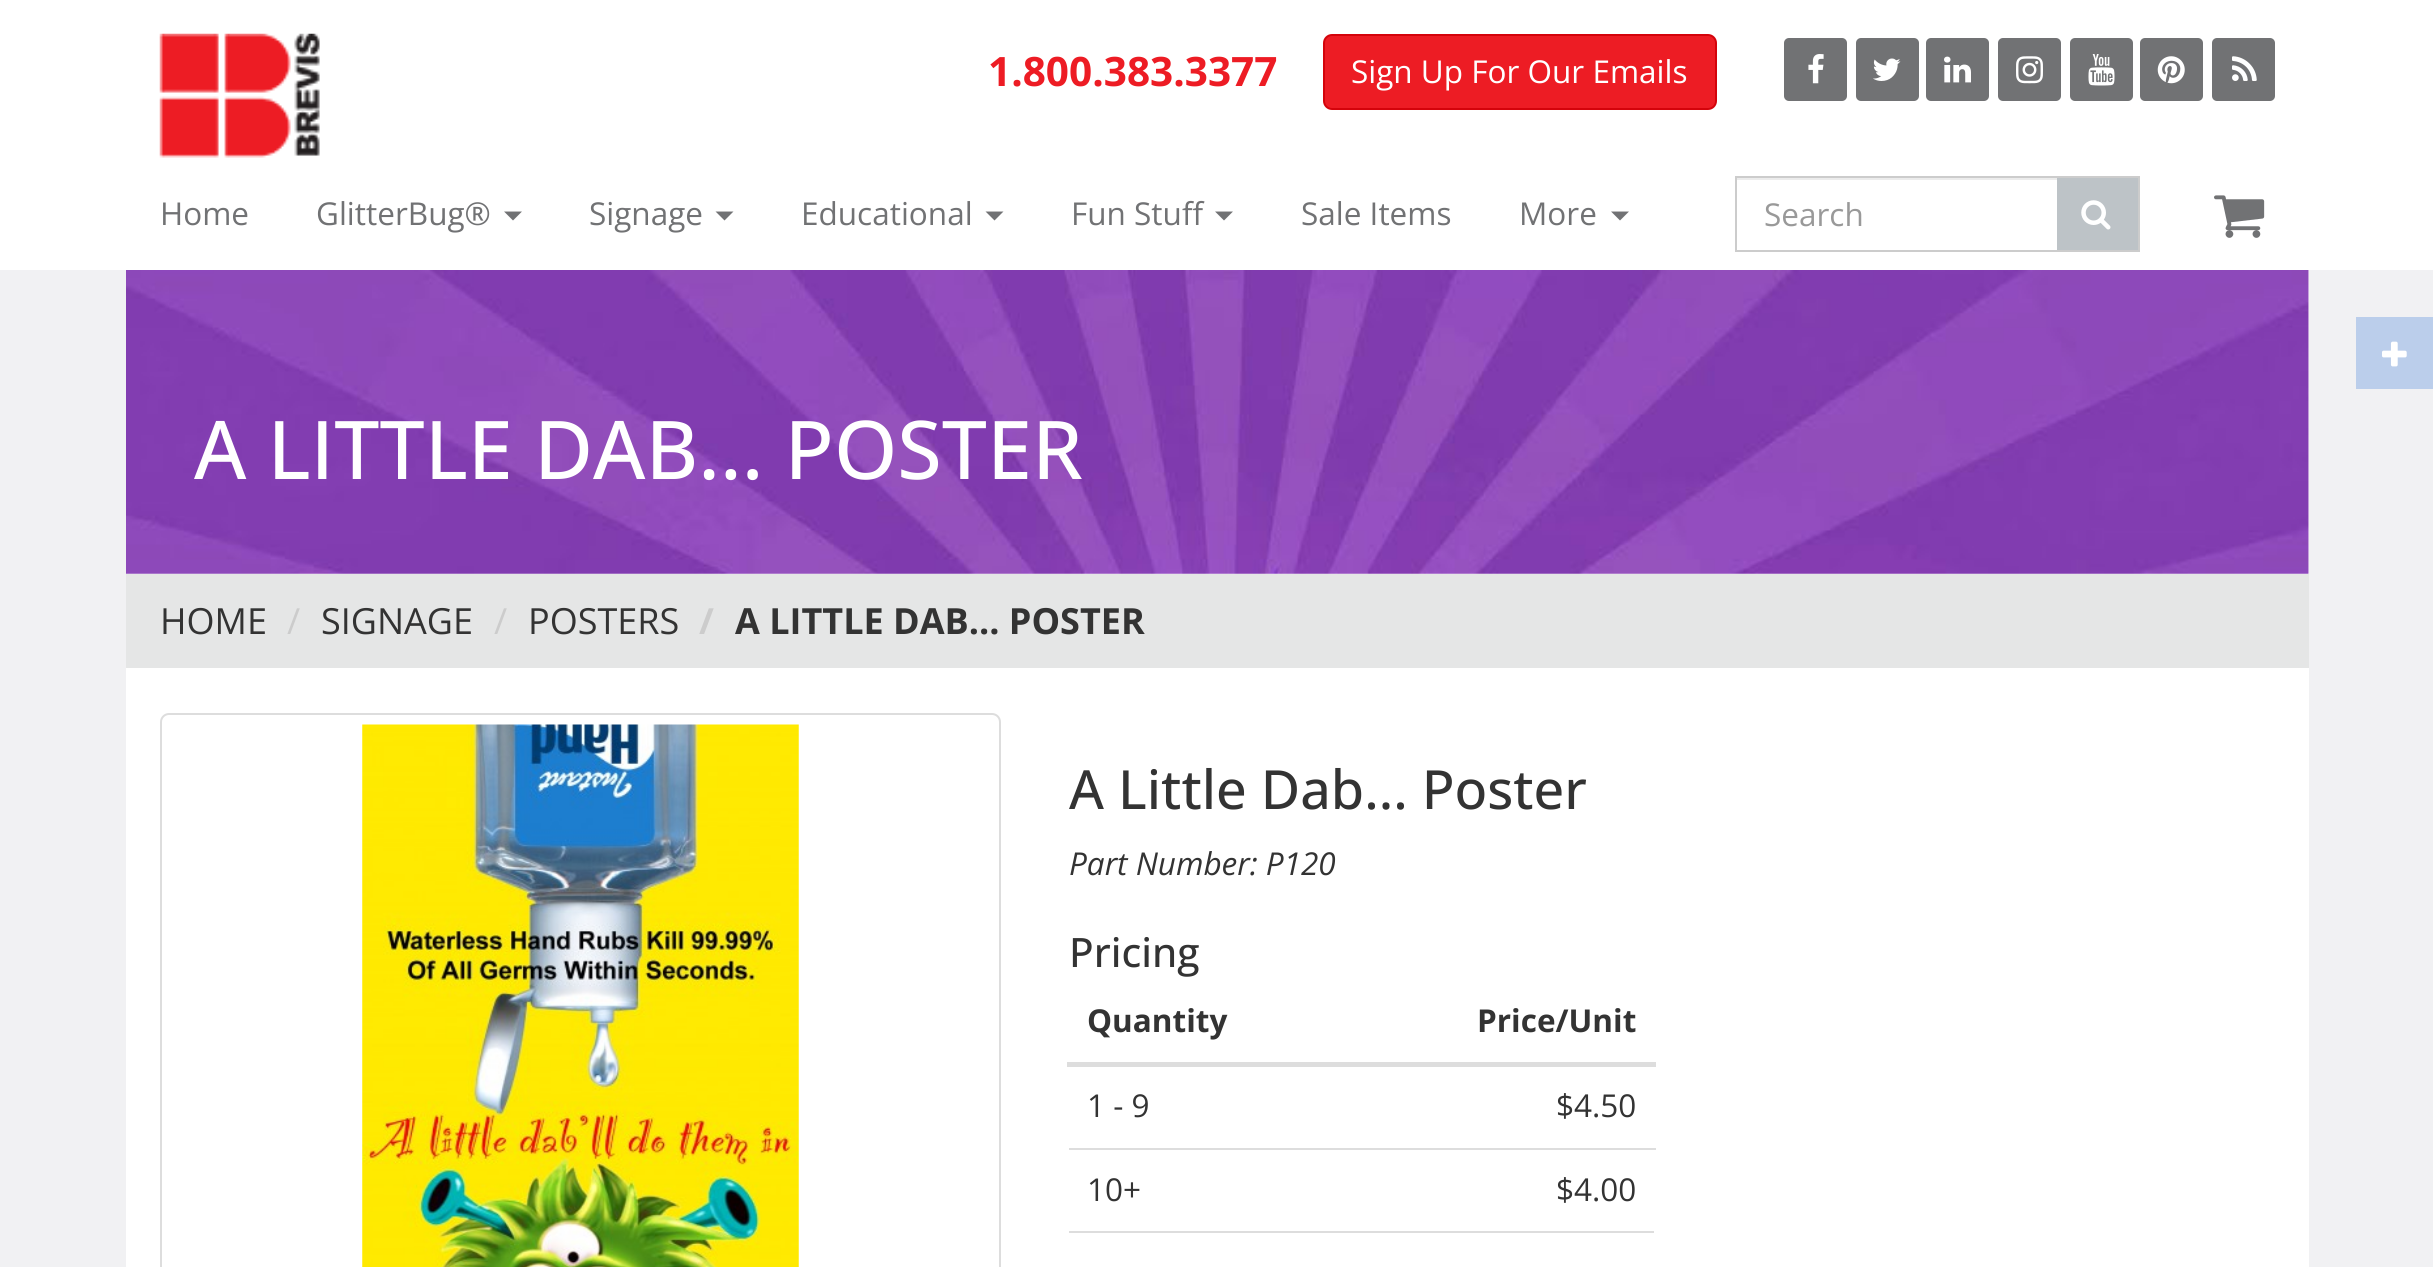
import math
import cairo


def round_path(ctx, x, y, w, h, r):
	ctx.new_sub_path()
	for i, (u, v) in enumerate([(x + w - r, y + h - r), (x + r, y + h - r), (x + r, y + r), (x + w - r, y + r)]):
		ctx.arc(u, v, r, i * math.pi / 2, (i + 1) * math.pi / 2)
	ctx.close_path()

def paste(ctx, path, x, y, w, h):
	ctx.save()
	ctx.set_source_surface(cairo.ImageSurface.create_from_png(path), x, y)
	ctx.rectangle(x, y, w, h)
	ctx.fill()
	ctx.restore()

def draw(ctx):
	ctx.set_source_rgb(0.945, 0.945, 0.953)
	ctx.paint()
	ctx.set_source_rgb(1, 1, 1)
	ctx.rectangle(0, 0, 2433, 270)
	ctx.fill()
	paste(ctx, 'media/1.png', 159, 33, 161, 125)
	ctx.select_font_face('Open Sans', cairo.FONT_SLANT_NORMAL, cairo.FONT_WEIGHT_BOLD)
	ctx.set_font_size(40.5)
	ctx.set_source_rgb(0.929, 0.11, 0.141)
	ctx.move_to(988, 86)
	ctx.show_text('1.800.383.3377')
	round_path(ctx, 1324, 35, 392, 74, 8)
	ctx.fill_preserve()
	ctx.set_source_rgb(0.831, 0.012, 0.043)
	ctx.stroke()
	ctx.select_font_face('Open Sans')
	ctx.set_font_size(31.5)
	ctx.set_source_rgb(1, 1, 1)
	ctx.move_to(1351, 83)
	ctx.show_text('Sign Up For Our Emails')
	ctx.set_source_rgb(0.443, 0.447, 0.455)
	round_path(ctx, 1784, 38, 63, 63, 5)
	ctx.fill()
	paste(ctx, 'media/2.png', 1808, 54, 16, 30)
	round_path(ctx, 1856, 38, 63, 63, 5)
	ctx.fill()
	paste(ctx, 'media/3.png', 1873, 58, 28, 23)
	round_path(ctx, 1926, 38, 63, 63, 5)
	ctx.fill()
	paste(ctx, 'media/4.png', 1944, 56, 27, 27)
	round_path(ctx, 1998, 38, 63, 63, 5)
	ctx.fill()
	paste(ctx, 'media/5.png', 2016, 56, 27, 28)
	round_path(ctx, 2070, 38, 63, 63, 5)
	ctx.fill()
	paste(ctx, 'media/6.png', 2088, 54, 27, 32)
	round_path(ctx, 2140, 38, 63, 63, 5)
	ctx.fill()
	paste(ctx, 'media/7.png', 2157, 56, 28, 28)
	round_path(ctx, 2212, 38, 63, 63, 5)
	ctx.fill()
	paste(ctx, 'media/8.png', 2232, 56, 25, 25)
	ctx.move_to(160, 225)
	ctx.show_text('Home')
	ctx.move_to(316, 225)
	ctx.show_text('GlitterBug®')
	ctx.new_path()
	ctx.move_to(504, 211.5)
	ctx.line_to(522, 211.5)
	ctx.line_to(513, 220.5)
	ctx.close_path()
	ctx.fill()
	ctx.move_to(589, 225)
	ctx.show_text('Signage')
	ctx.new_path()
	ctx.move_to(715.5, 211.5)
	ctx.line_to(733.5, 211.5)
	ctx.line_to(724.5, 220.5)
	ctx.close_path()
	ctx.fill()
	ctx.move_to(801, 225)
	ctx.show_text('Educational')
	ctx.new_path()
	ctx.move_to(985.5, 211.5)
	ctx.line_to(1003.5, 211.5)
	ctx.line_to(994.5, 220.5)
	ctx.close_path()
	ctx.fill()
	ctx.move_to(1071, 225)
	ctx.show_text('Fun Stuff')
	ctx.new_path()
	ctx.move_to(1215, 211.5)
	ctx.line_to(1233, 211.5)
	ctx.line_to(1224, 220.5)
	ctx.close_path()
	ctx.fill()
	ctx.move_to(1301, 225)
	ctx.show_text('Sale Items')
	ctx.move_to(1519, 225)
	ctx.show_text('More')
	ctx.new_path()
	ctx.move_to(1611, 211.5)
	ctx.line_to(1629, 211.5)
	ctx.line_to(1620, 220.5)
	ctx.close_path()
	ctx.fill()
	ctx.set_source_rgb(0.741, 0.765, 0.78)
	ctx.rectangle(2057, 178, 81, 72)
	ctx.fill()
	ctx.set_source_rgb(0.8, 0.8, 0.8)
	ctx.rectangle(1735, 176, 405, 2)
	ctx.rectangle(2138, 176, 2, 76)
	ctx.rectangle(1735, 250, 405, 2)
	ctx.fill()
	paste(ctx, 'media/9.png', 2081, 200, 30, 30)
	ctx.set_source_rgb(0.925, 0.925, 0.925)
	ctx.rectangle(1737, 178, 320, 2)
	ctx.fill()
	ctx.set_source_rgb(0.8, 0.8, 0.8)
	ctx.rectangle(1735, 176, 2, 76)
	ctx.fill()
	ctx.set_source_rgb(0.6, 0.6, 0.6)
	ctx.move_to(1764, 226)
	ctx.show_text('Search')
	paste(ctx, 'media/10.png', 2214, 195, 51, 43)
	ctx.set_source_rgb(0.733, 0.808, 0.918)
	ctx.rectangle(2356, 317, 77, 72)
	ctx.fill()
	paste(ctx, 'media/11.png', 2382, 341, 25, 26)
	ctx.set_source_rgb(1, 1, 1)
	ctx.rectangle(126, 270, 2183, 997)
	ctx.fill()
	paste(ctx, 'media/12.png', 126, 270, 2183, 304)
	ctx.select_font_face('Open Sans Medium')
	ctx.set_font_size(81)
	ctx.move_to(194, 479)
	ctx.show_text('A LITTLE DAB... POSTER')
	ctx.set_source_rgb(0.898, 0.902, 0.902)
	ctx.rectangle(126, 574, 2183, 94)
	ctx.fill()
	ctx.select_font_face('Open Sans')
	ctx.set_font_size(36)
	ctx.set_source_rgb(0.2, 0.2, 0.2)
	ctx.move_to(160, 634)
	ctx.show_text('HOME')
	ctx.set_source_rgb(0.8, 0.8, 0.8)
	ctx.move_to(287, 634)
	ctx.show_text('/')
	ctx.set_source_rgb(0.2, 0.2, 0.2)
	ctx.move_to(321, 634)
	ctx.show_text('SIGNAGE')
	ctx.set_source_rgb(0.8, 0.8, 0.8)
	ctx.move_to(494, 634)
	ctx.show_text('/')
	ctx.set_source_rgb(0.2, 0.2, 0.2)
	ctx.move_to(528, 634)
	ctx.show_text('POSTERS')
	ctx.select_font_face('Open Sans', cairo.FONT_SLANT_NORMAL, cairo.FONT_WEIGHT_BOLD)
	ctx.set_source_rgb(0.8, 0.8, 0.8)
	ctx.move_to(699, 634)
	ctx.show_text('/')
	ctx.set_source_rgb(0.2, 0.2, 0.2)
	ctx.move_to(735, 634)
	ctx.show_text('A LITTLE DAB... POSTER')
	round_path(ctx, 161, 714, 839, 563, 8)
	ctx.set_source_rgb(0.867, 0.867, 0.867)
	ctx.stroke()
	paste(ctx, 'media/13.png', 362, 724, 437, 543)
	ctx.select_font_face('Open Sans Medium')
	ctx.set_font_size(54)
	ctx.set_source_rgb(0.2, 0.2, 0.2)
	ctx.move_to(1069, 809)
	ctx.show_text('A Little Dab... Poster')
	ctx.select_font_face('Open Sans', cairo.FONT_SLANT_ITALIC)
	ctx.set_font_size(31.5)
	ctx.move_to(1069, 875)
	ctx.show_text('Part Number: P120')
	ctx.select_font_face('Open Sans Medium')
	ctx.set_font_size(40.5)
	ctx.move_to(1069, 967)
	ctx.show_text('Pricing')
	ctx.set_source_rgb(0.867, 0.867, 0.867)
	ctx.rectangle(1069, 1231, 585, 2)
	ctx.fill()
	ctx.select_font_face('Open Sans', cairo.FONT_SLANT_NORMAL, cairo.FONT_WEIGHT_BOLD)
	ctx.set_font_size(31.5)
	ctx.set_source_rgb(0.2, 0.2, 0.2)
	ctx.move_to(1087, 1032)
	ctx.show_text('Quantity')
	ctx.set_source_rgb(0.867, 0.867, 0.867)
	ctx.rectangle(1067, 1062, 589, 5)
	ctx.fill()
	ctx.set_source_rgb(0.2, 0.2, 0.2)
	ctx.move_to(1477, 1032)
	ctx.show_text('Price/Unit')
	ctx.select_font_face('Open Sans')
	for x, y, s in [
		(1087, 1117, '1 - 9'),
		(1556, 1117, '$4.50'),
		(1087, 1201, '10+'),
	]:
		ctx.move_to(x, y)
		ctx.show_text(s)
	ctx.set_source_rgb(0.867, 0.867, 0.867)
	ctx.rectangle(1069, 1148, 587, 2)
	ctx.fill()
	ctx.set_source_rgb(0.2, 0.2, 0.2)
	ctx.move_to(1556, 1201)
	ctx.show_text('$4.00')


surface = cairo.ImageSurface(cairo.FORMAT_RGB24, 2433, 1267)
ctx = cairo.Context(surface)
options = cairo.FontOptions()
options.set_hint_metrics(cairo.HINT_METRICS_OFF)
options.set_hint_style(cairo.HINT_STYLE_NONE)
ctx.set_font_options(options)
ctx.set_miter_limit(4)
draw(ctx)
surface.write_to_png('image.png')
